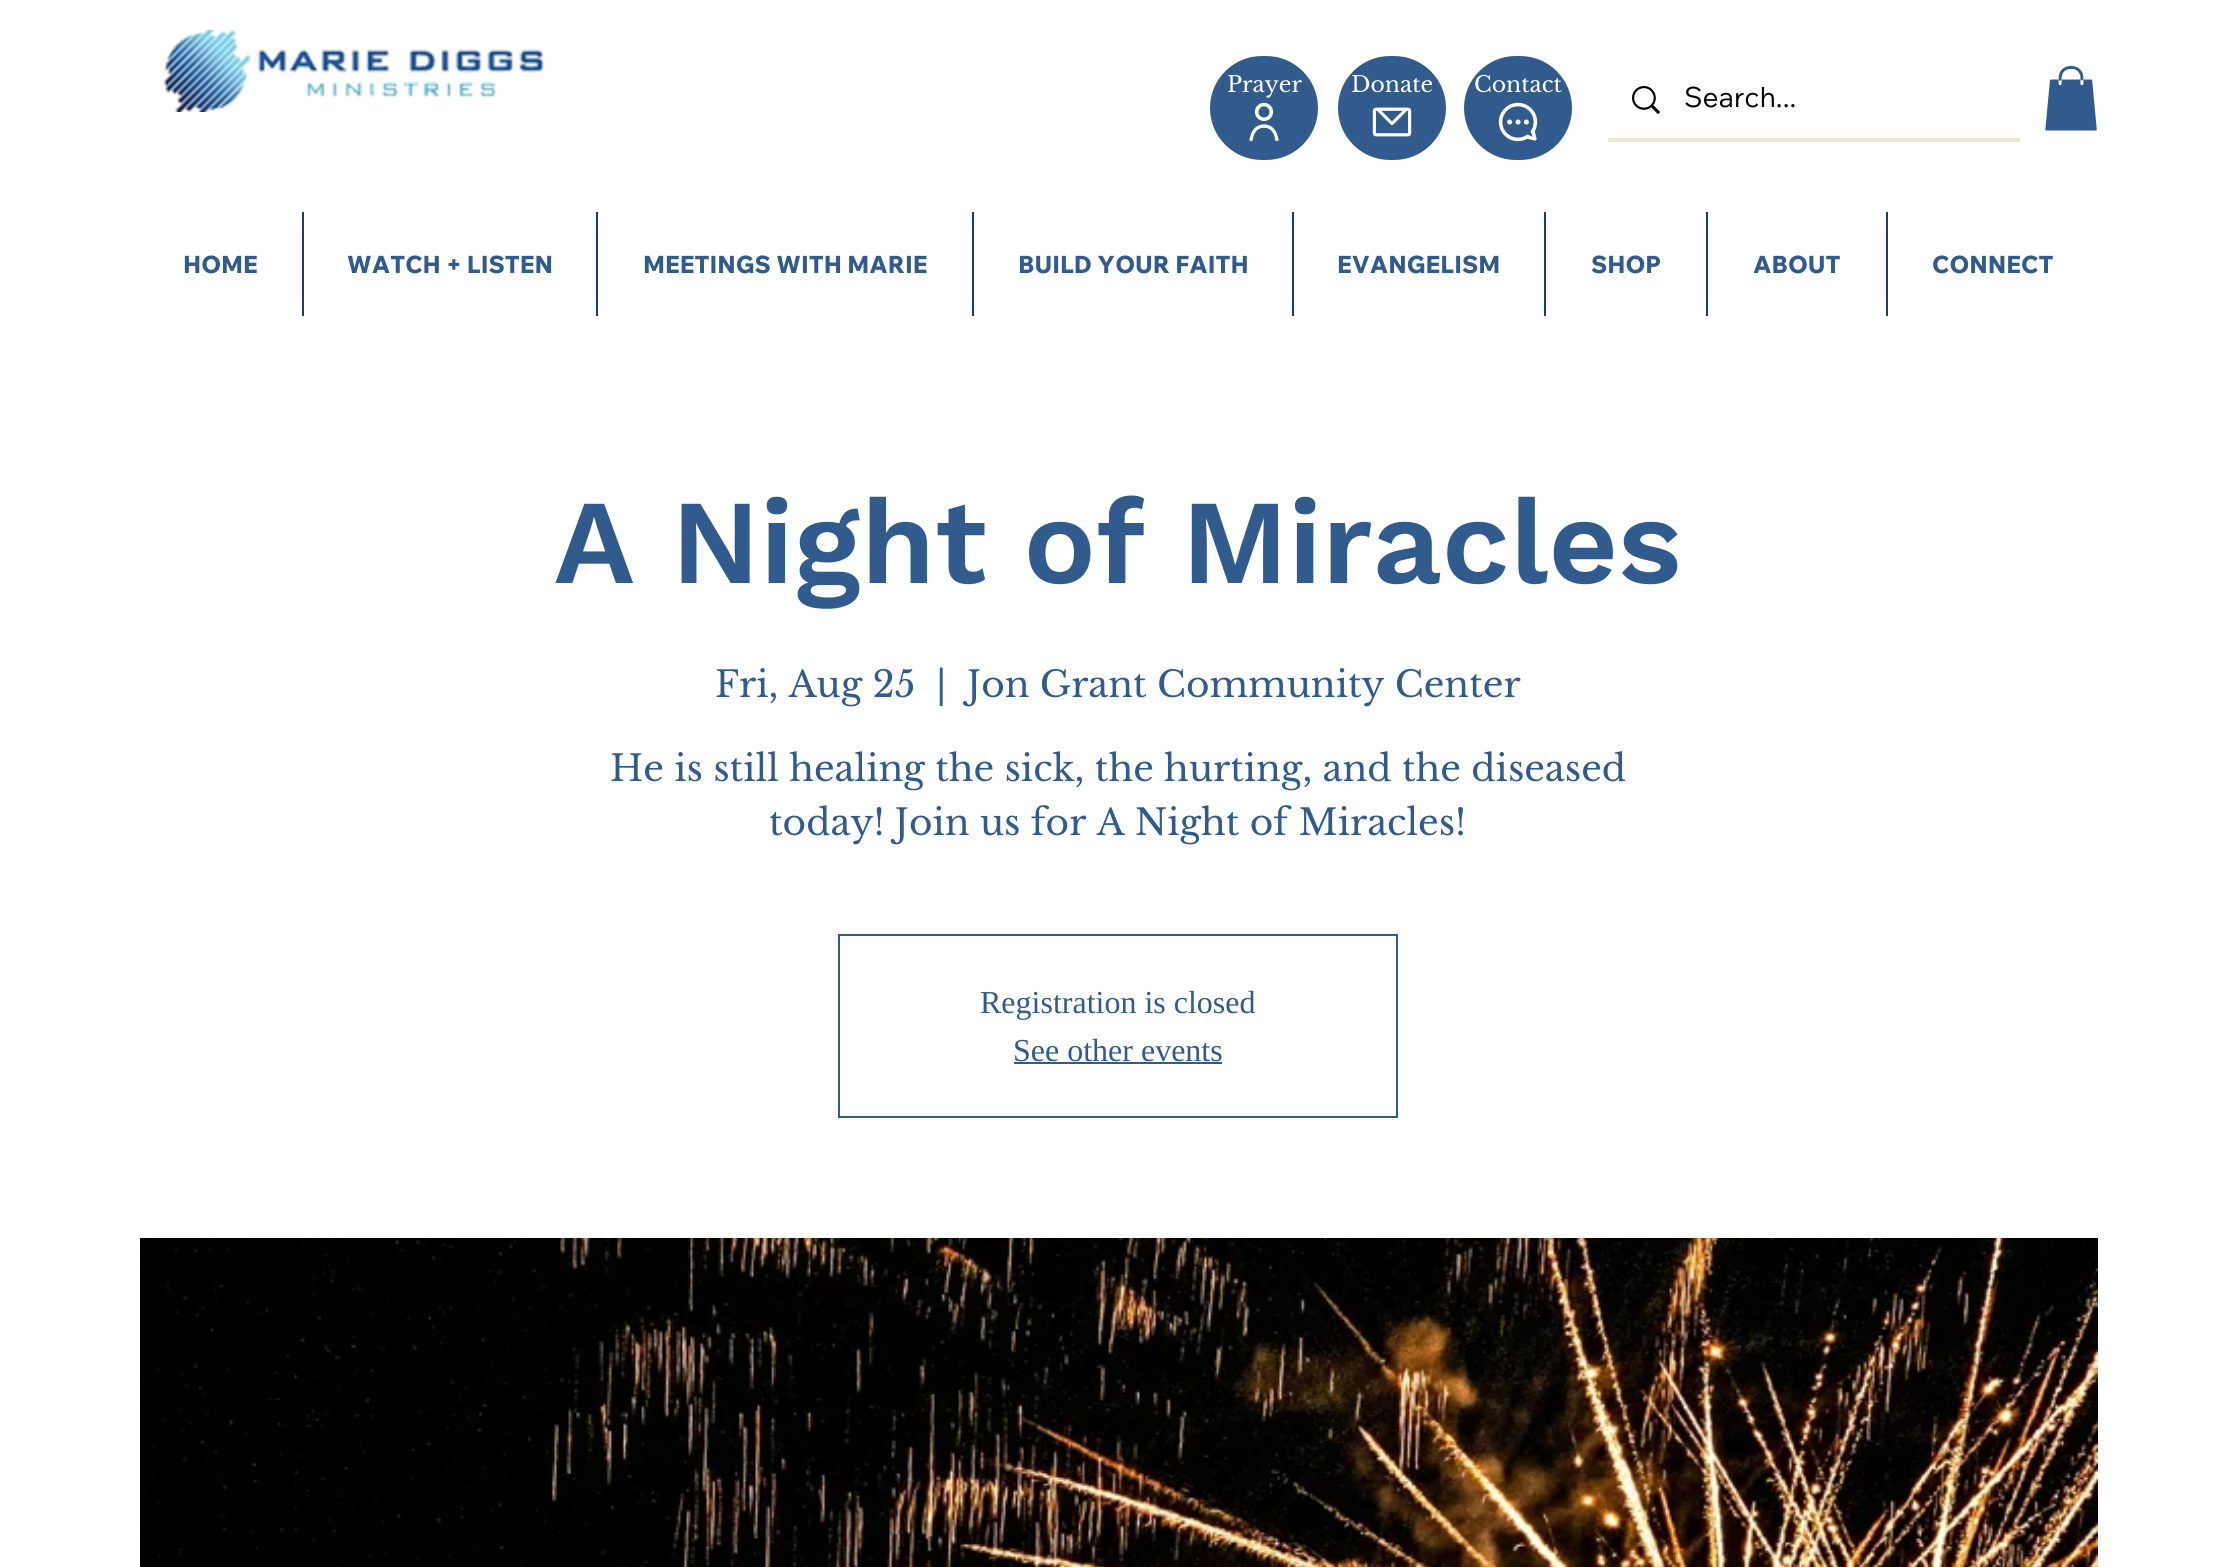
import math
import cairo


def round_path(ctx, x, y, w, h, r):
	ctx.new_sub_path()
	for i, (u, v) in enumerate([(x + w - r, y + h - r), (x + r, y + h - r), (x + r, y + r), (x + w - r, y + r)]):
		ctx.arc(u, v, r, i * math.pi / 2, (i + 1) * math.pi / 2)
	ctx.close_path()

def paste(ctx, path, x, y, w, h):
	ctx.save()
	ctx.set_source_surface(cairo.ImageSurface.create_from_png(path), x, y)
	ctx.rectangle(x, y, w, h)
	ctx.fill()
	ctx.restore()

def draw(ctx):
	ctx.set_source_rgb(1, 1, 1)
	ctx.paint()
	paste(ctx, 'media/1.png', 163, 30, 382, 82)
	ctx.set_source_rgb(0.192, 0.357, 0.549)
	round_path(ctx, 1210, 56, 108, 104, 52)
	ctx.fill()
	ctx.select_font_face('Libre Baskerville')
	ctx.set_font_size(22)
	ctx.set_source_rgb(1, 1, 1)
	ctx.move_to(1227, 92)
	ctx.show_text('Prayer')
	paste(ctx, 'media/2.png', 1249, 102, 30, 40)
	ctx.set_source_rgb(0.192, 0.357, 0.549)
	round_path(ctx, 1338, 56, 108, 104, 52)
	ctx.fill()
	ctx.set_source_rgb(1, 1, 1)
	ctx.move_to(1351, 92)
	ctx.show_text('Donate')
	paste(ctx, 'media/3.png', 1372, 107, 40, 30)
	ctx.set_source_rgb(0.192, 0.357, 0.549)
	round_path(ctx, 1464, 56, 108, 104, 52)
	ctx.fill()
	ctx.set_source_rgb(1, 1, 1)
	ctx.move_to(1474, 92)
	ctx.show_text('Contact')
	paste(ctx, 'media/4.png', 1498, 102, 40, 40)
	paste(ctx, 'media/5.png', 2045, 66, 52, 65)
	ctx.set_source_rgb(0.922, 0.898, 0.839)
	ctx.rectangle(1608, 138, 412, 4)
	ctx.fill()
	paste(ctx, 'media/6.png', 1632, 86, 28, 28)
	ctx.select_font_face('Wix Madefor Text')
	ctx.set_font_size(28)
	ctx.set_source_rgb(0, 0, 0)
	ctx.move_to(1684, 107)
	ctx.show_text('Search...')
	ctx.select_font_face('Wix Madefor Text ExtraBold')
	ctx.set_font_size(24)
	ctx.set_source_rgb(0.192, 0.357, 0.549)
	ctx.move_to(183, 273)
	ctx.show_text('HOME')
	ctx.set_source_rgb(0.129, 0.239, 0.365)
	ctx.rectangle(302, 212, 2, 104)
	ctx.fill()
	ctx.set_source_rgb(0.192, 0.357, 0.549)
	ctx.move_to(347, 273)
	ctx.show_text('WATCH + LISTEN')
	ctx.set_source_rgb(0.129, 0.239, 0.365)
	ctx.rectangle(596, 212, 2, 104)
	ctx.fill()
	ctx.set_source_rgb(0.192, 0.357, 0.549)
	ctx.move_to(643, 273)
	ctx.show_text('MEETINGS WITH MARIE')
	ctx.set_source_rgb(0.129, 0.239, 0.365)
	ctx.rectangle(972, 212, 2, 104)
	ctx.fill()
	ctx.set_source_rgb(0.192, 0.357, 0.549)
	ctx.move_to(1018, 273)
	ctx.show_text('BUILD YOUR FAITH')
	ctx.set_source_rgb(0.129, 0.239, 0.365)
	ctx.rectangle(1292, 212, 2, 104)
	ctx.fill()
	ctx.set_source_rgb(0.192, 0.357, 0.549)
	ctx.move_to(1337, 273)
	ctx.show_text('EVANGELISM')
	ctx.set_source_rgb(0.129, 0.239, 0.365)
	ctx.rectangle(1544, 212, 2, 104)
	ctx.fill()
	ctx.set_source_rgb(0.192, 0.357, 0.549)
	ctx.move_to(1591, 273)
	ctx.show_text('SHOP')
	ctx.set_source_rgb(0.129, 0.239, 0.365)
	ctx.rectangle(1706, 212, 2, 104)
	ctx.fill()
	ctx.set_source_rgb(0.192, 0.357, 0.549)
	ctx.move_to(1753, 273)
	ctx.show_text('ABOUT')
	ctx.set_source_rgb(0.129, 0.239, 0.365)
	ctx.rectangle(1886, 212, 2, 104)
	ctx.fill()
	ctx.set_source_rgb(0.192, 0.357, 0.549)
	ctx.move_to(1932, 273)
	ctx.show_text('CONNECT')
	ctx.select_font_face('Work Sans SemiBold')
	ctx.set_font_size(120)
	ctx.move_to(554, 583)
	ctx.show_text('A Night of Miracles')
	ctx.select_font_face('Libre Baskerville')
	ctx.set_font_size(36)
	for x, y, s in [
		(715, 697, 'Fri, Aug 25'),
		(936, 697, '|'),
		(967, 697, 'Jon Grant Community Center'),
		(610, 781, 'He is still healing the sick, the hurting, and the diseased'),
		(769, 835, 'today! Join us for A Night of Miracles!'),
	]:
		ctx.move_to(x, y)
		ctx.show_text(s)
	ctx.rectangle(839, 935, 558, 182)
	ctx.stroke()
	ctx.select_font_face('Liberation Serif')
	ctx.set_font_size(32)
	ctx.move_to(980, 1013)
	ctx.show_text('Registration is closed')
	ctx.move_to(1013, 1061)
	ctx.show_text('See other events')
	ctx.rectangle(1014, 1062, 208, 2)
	ctx.fill()
	paste(ctx, 'media/7.png', 140, 1238, 1958, 329)


surface = cairo.ImageSurface(cairo.FORMAT_RGB24, 2236, 1567)
ctx = cairo.Context(surface)
options = cairo.FontOptions()
options.set_hint_metrics(cairo.HINT_METRICS_OFF)
options.set_hint_style(cairo.HINT_STYLE_NONE)
ctx.set_font_options(options)
ctx.set_miter_limit(4)
draw(ctx)
surface.write_to_png('image.png')
